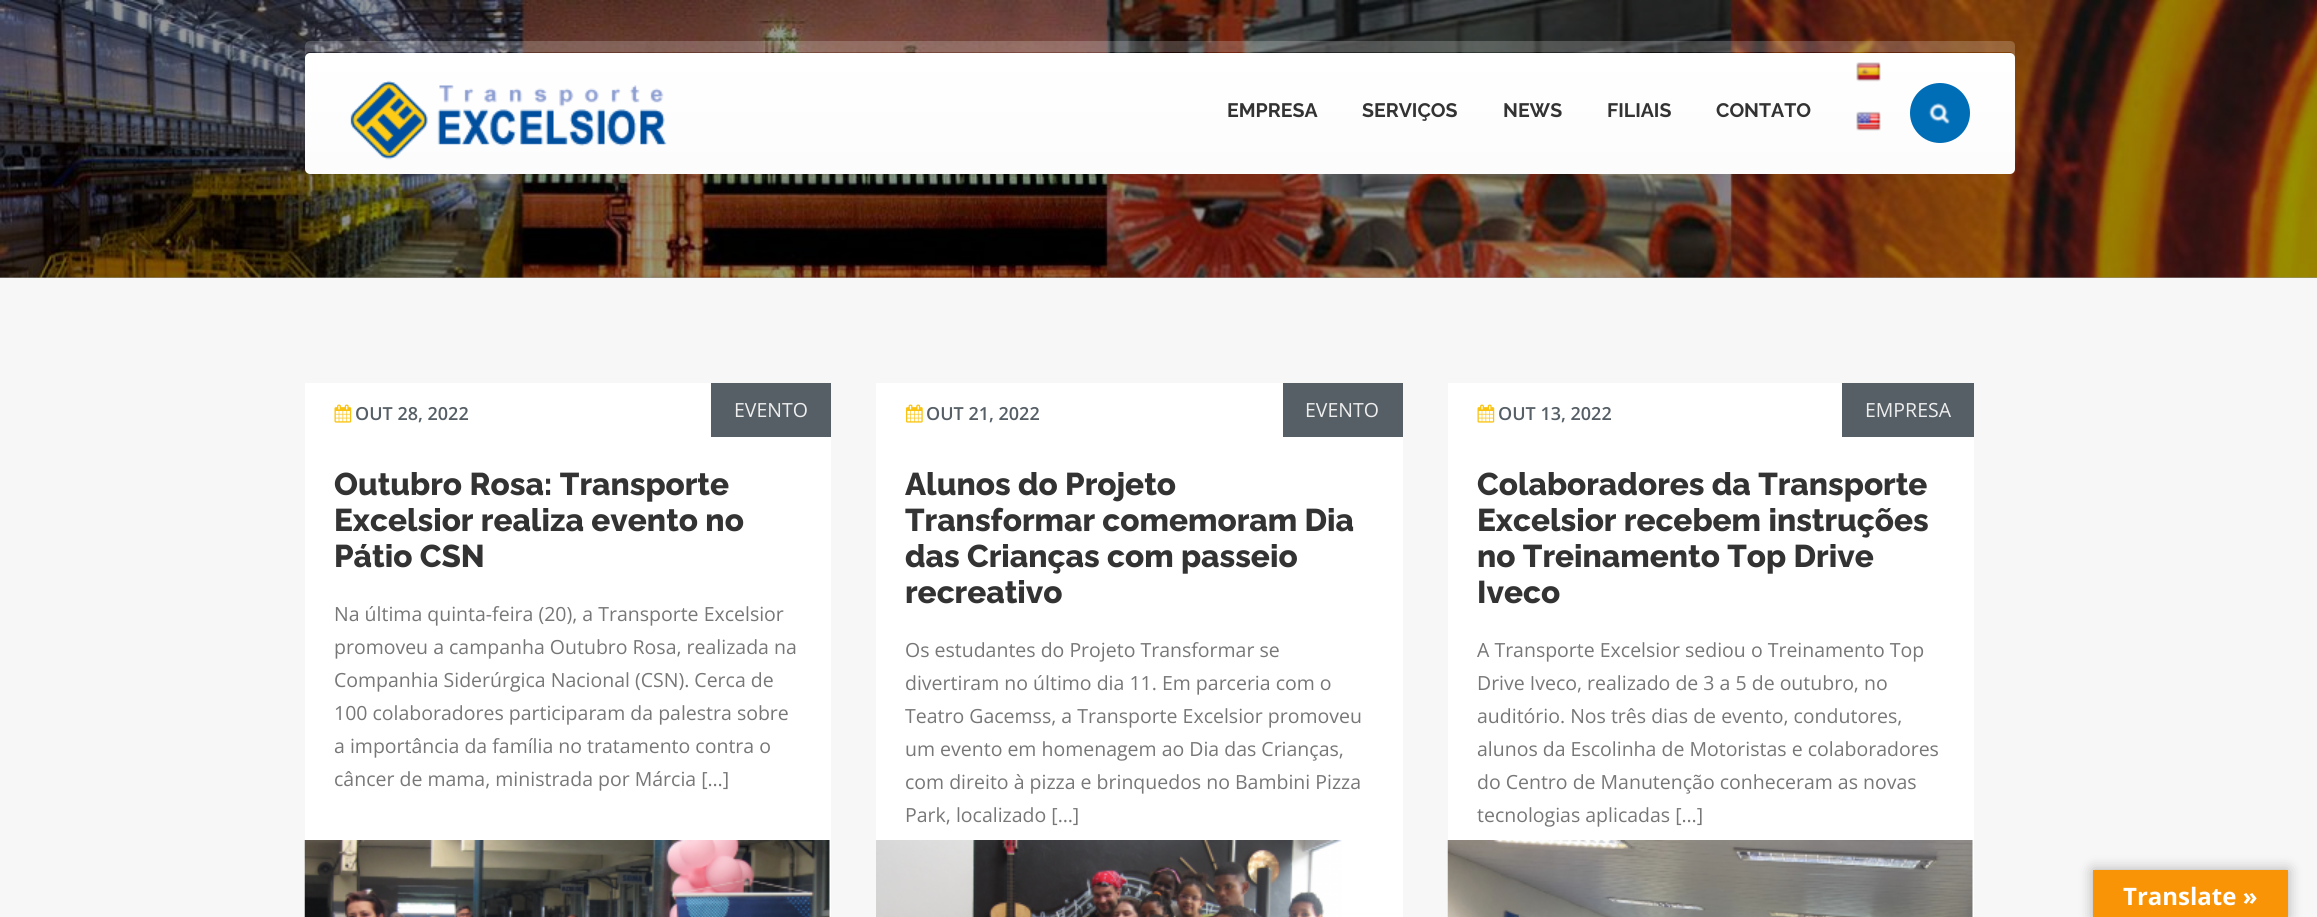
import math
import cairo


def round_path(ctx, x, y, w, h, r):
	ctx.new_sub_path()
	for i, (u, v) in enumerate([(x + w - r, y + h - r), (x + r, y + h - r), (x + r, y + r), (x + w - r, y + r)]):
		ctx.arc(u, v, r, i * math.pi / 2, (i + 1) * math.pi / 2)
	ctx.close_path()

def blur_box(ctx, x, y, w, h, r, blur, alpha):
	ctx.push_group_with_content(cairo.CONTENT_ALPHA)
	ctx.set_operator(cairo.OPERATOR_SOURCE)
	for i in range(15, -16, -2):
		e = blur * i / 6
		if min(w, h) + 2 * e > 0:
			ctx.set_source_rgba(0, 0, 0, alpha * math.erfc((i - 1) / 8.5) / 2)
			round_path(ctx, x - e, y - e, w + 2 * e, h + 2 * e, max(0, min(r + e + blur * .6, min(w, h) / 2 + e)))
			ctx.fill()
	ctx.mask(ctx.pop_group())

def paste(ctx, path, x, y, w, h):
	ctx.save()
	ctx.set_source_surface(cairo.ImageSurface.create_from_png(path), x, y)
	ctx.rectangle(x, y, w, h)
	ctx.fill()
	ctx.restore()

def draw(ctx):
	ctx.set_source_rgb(0.6, 0.6, 0.6)
	ctx.paint()
	paste(ctx, 'media/1.png', 0, 0, 2317, 278)
	ctx.set_source_rgba(1, 1, 1, 0.2)
	ctx.new_path()
	ctx.move_to(310, 41)
	ctx.curve_to(303, 41, 305, 51, 305, 55)
	ctx.curve_to(306, 53, 307, 52, 309, 52)
	ctx.line_to(2010, 52)
	ctx.curve_to(2012, 52, 2014, 55, 2014, 57)
	ctx.line_to(2014, 159)
	ctx.line_to(2015, 157)
	ctx.line_to(2015, 46)
	ctx.curve_to(2015, 43, 2013, 41, 2010, 41)
	ctx.close_path()
	ctx.fill()
	gradient = cairo.LinearGradient(1160, 52, 1160, 174)
	gradient.add_color_stop_rgba(0, 1, 1, 1, 1)
	gradient.add_color_stop_rgba(1, 0.988, 0.988, 0.988, 1)
	ctx.set_source(gradient)
	round_path(ctx, 305, 53, 1710, 121, 5)
	ctx.fill()
	paste(ctx, 'media/2.png', 350, 80, 317, 80)
	ctx.select_font_face('Raleway', cairo.FONT_SLANT_NORMAL, cairo.FONT_WEIGHT_BOLD)
	ctx.set_font_size(19.5)
	ctx.set_source_rgb(0.2, 0.2, 0.2)
	for x, y, s in [
		(1227, 117, 'EMPRESA'),
		(1362, 117, 'SERVIÇOS'),
		(1503, 117, 'NEWS'),
		(1607, 117, 'FILIAIS'),
		(1716, 117, 'CONTATO'),
	]:
		ctx.move_to(x, y)
		ctx.show_text(s)
	paste(ctx, 'media/3.png', 1856, 62, 25, 20)
	paste(ctx, 'media/4.png', 1856, 111, 25, 20)
	ctx.set_source_rgb(0, 0.427, 0.718)
	ctx.arc(1940, 113, 30, 0, 2 * math.pi)
	ctx.fill()
	paste(ctx, 'media/5.png', 1928, 103, 22, 21)
	ctx.set_source_rgb(0.965, 0.965, 0.965)
	ctx.rectangle(0, 278, 2317, 639)
	ctx.fill()
	ctx.set_source_rgb(1, 1, 1)
	ctx.rectangle(305, 383, 526, 534)
	ctx.fill()
	paste(ctx, 'media/6.png', 334, 404, 18, 19)
	ctx.select_font_face('Open Sans SemiBold')
	ctx.set_font_size(18)
	ctx.set_source_rgb(0.337, 0.373, 0.4)
	ctx.move_to(355, 420)
	ctx.show_text('OUT 28, 2022')
	ctx.rectangle(711, 383, 120, 54)
	ctx.fill()
	ctx.select_font_face('Open Sans')
	ctx.set_font_size(19.5)
	ctx.set_source_rgb(0.933, 0.933, 0.933)
	ctx.move_to(734, 417)
	ctx.show_text('EVENTO')
	ctx.select_font_face('Raleway Thin')
	ctx.set_font_size(31.5)
	ctx.set_source_rgb(0.2, 0.2, 0.2)
	for x, y, s in [
		(334, 495, 'Outubro Rosa: Transporte'),
		(334, 531, 'Excelsior realiza evento no'),
		(334, 567, 'Pátio CSN'),
	]:
		ctx.move_to(x, y)
		ctx.show_text(s)
	ctx.select_font_face('Open Sans')
	ctx.set_font_size(19.5)
	ctx.set_source_rgb(0.467, 0.467, 0.467)
	for x, y, s in [
		(334, 621, 'Na última quinta-feira (20), a Transporte Excelsior'),
		(334, 654, 'promoveu a campanha Outubro Rosa, realizada na'),
		(334, 687, 'Companhia Siderúrgica Nacional (CSN). Cerca de'),
		(334, 720, '100 colaboradores participaram da palestra sobre'),
		(334, 753, 'a importância da família no tratamento contra o'),
		(334, 786, 'câncer de mama, ministrada por Márcia […]'),
	]:
		ctx.move_to(x, y)
		ctx.show_text(s)
	paste(ctx, 'media/7.png', 304, 840, 526, 77)
	ctx.set_source_rgb(1, 1, 1)
	ctx.rectangle(876, 383, 527, 534)
	ctx.fill()
	paste(ctx, 'media/8.png', 906, 404, 17, 19)
	ctx.select_font_face('Open Sans SemiBold')
	ctx.set_font_size(18)
	ctx.set_source_rgb(0.337, 0.373, 0.4)
	ctx.move_to(926, 420)
	ctx.show_text('OUT 21, 2022')
	ctx.rectangle(1283, 383, 120, 54)
	ctx.fill()
	ctx.select_font_face('Open Sans')
	ctx.set_font_size(19.5)
	ctx.set_source_rgb(0.933, 0.933, 0.933)
	ctx.move_to(1305, 417)
	ctx.show_text('EVENTO')
	ctx.select_font_face('Raleway Thin')
	ctx.set_font_size(31.5)
	ctx.set_source_rgb(0.2, 0.2, 0.2)
	for x, y, s in [
		(905, 495, 'Alunos do Projeto'),
		(905, 531, 'Transformar comemoram Dia'),
		(905, 567, 'das Crianças com passeio'),
		(905, 603, 'recreativo'),
	]:
		ctx.move_to(x, y)
		ctx.show_text(s)
	ctx.select_font_face('Open Sans')
	ctx.set_font_size(19.5)
	ctx.set_source_rgb(0.467, 0.467, 0.467)
	for x, y, s in [
		(905, 657, 'Os estudantes do Projeto Transformar se'),
		(905, 690, 'divertiram no último dia 11. Em parceria com o'),
		(905, 723, 'Teatro Gacemss, a Transporte Excelsior promoveu'),
		(905, 756, 'um evento em homenagem ao Dia das Crianças,'),
		(905, 789, 'com direito à pizza e brinquedos no Bambini Pizza'),
		(905, 822, 'Park, localizado […]'),
	]:
		ctx.move_to(x, y)
		ctx.show_text(s)
	paste(ctx, 'media/9.png', 876, 840, 466, 77)
	ctx.set_source_rgb(1, 1, 1)
	ctx.rectangle(1448, 383, 526, 534)
	ctx.fill()
	paste(ctx, 'media/6.png', 1477, 404, 18, 19)
	ctx.select_font_face('Open Sans SemiBold')
	ctx.set_font_size(18)
	ctx.set_source_rgb(0.337, 0.373, 0.4)
	ctx.move_to(1498, 420)
	ctx.show_text('OUT 13, 2022')
	ctx.rectangle(1842, 383, 132, 54)
	ctx.fill()
	ctx.select_font_face('Open Sans')
	ctx.set_font_size(19.5)
	ctx.set_source_rgb(0.933, 0.933, 0.933)
	ctx.move_to(1865, 417)
	ctx.show_text('EMPRESA')
	ctx.select_font_face('Raleway Thin')
	ctx.set_font_size(31.5)
	ctx.set_source_rgb(0.2, 0.2, 0.2)
	for x, y, s in [
		(1477, 495, 'Colaboradores da Transporte'),
		(1477, 531, 'Excelsior recebem instruções'),
		(1477, 567, 'no Treinamento Top Drive'),
		(1477, 603, 'Iveco'),
	]:
		ctx.move_to(x, y)
		ctx.show_text(s)
	ctx.select_font_face('Open Sans')
	ctx.set_font_size(19.5)
	ctx.set_source_rgb(0.467, 0.467, 0.467)
	for x, y, s in [
		(1477, 657, 'A Transporte Excelsior sediou o Treinamento Top'),
		(1477, 690, 'Drive Iveco, realizado de 3 a 5 de outubro, no'),
		(1477, 723, 'auditório. Nos três dias de evento, condutores,'),
		(1477, 756, 'alunos da Escolinha de Motoristas e colaboradores'),
		(1477, 789, 'do Centro de Manutenção conheceram as novas'),
		(1477, 822, 'tecnologias aplicadas […]'),
	]:
		ctx.move_to(x, y)
		ctx.show_text(s)
	paste(ctx, 'media/10.png', 1447, 840, 526, 77)
	ctx.set_source_rgb(0, 0, 0)
	blur_box(ctx, 2093, 870, 195, 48, 0, 7, 0.3)
	ctx.set_source_rgb(0.973, 0.58, 0.024)
	ctx.rectangle(2093, 870, 195, 47)
	ctx.fill()
	ctx.select_font_face('Open Sans', cairo.FONT_SLANT_NORMAL, cairo.FONT_WEIGHT_BOLD)
	ctx.set_font_size(24)
	ctx.set_source_rgb(1, 1, 1)
	ctx.move_to(2123, 905)
	ctx.show_text('Translate »')


surface = cairo.ImageSurface(cairo.FORMAT_RGB24, 2317, 917)
ctx = cairo.Context(surface)
options = cairo.FontOptions()
options.set_hint_metrics(cairo.HINT_METRICS_OFF)
options.set_hint_style(cairo.HINT_STYLE_NONE)
ctx.set_font_options(options)
ctx.set_miter_limit(4)
draw(ctx)
surface.write_to_png('image.png')
